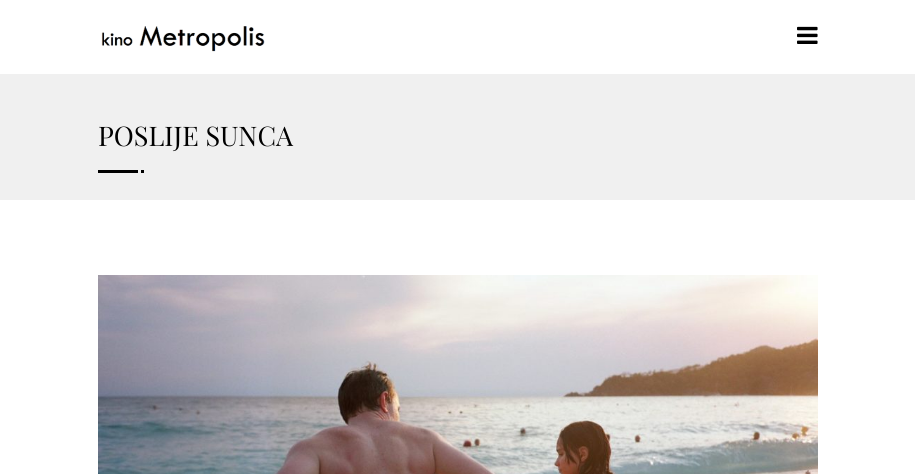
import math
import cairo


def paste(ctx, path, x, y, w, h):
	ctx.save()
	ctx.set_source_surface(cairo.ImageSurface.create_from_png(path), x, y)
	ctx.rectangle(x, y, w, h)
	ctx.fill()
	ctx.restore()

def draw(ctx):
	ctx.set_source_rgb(1, 1, 1)
	ctx.paint()
	paste(ctx, 'media/1.png', 101, 26, 164, 26)
	paste(ctx, 'media/2.png', 797, 26, 21, 18)
	ctx.set_source_rgb(0.941, 0.941, 0.941)
	ctx.rectangle(0, 74, 915, 126)
	ctx.fill()
	ctx.select_font_face('Playfair Display')
	ctx.set_font_size(27)
	ctx.set_source_rgb(0, 0, 0)
	ctx.move_to(98, 146)
	ctx.show_text('POSLIJE SUNCA')
	ctx.rectangle(98, 170, 40, 3)
	ctx.fill()
	ctx.rectangle(141, 170, 3, 3)
	ctx.fill()
	paste(ctx, 'media/3.png', 98, 275, 720, 199)


surface = cairo.ImageSurface(cairo.FORMAT_RGB24, 915, 474)
ctx = cairo.Context(surface)
options = cairo.FontOptions()
options.set_hint_metrics(cairo.HINT_METRICS_OFF)
options.set_hint_style(cairo.HINT_STYLE_NONE)
ctx.set_font_options(options)
ctx.set_miter_limit(4)
draw(ctx)
surface.write_to_png('image.png')
